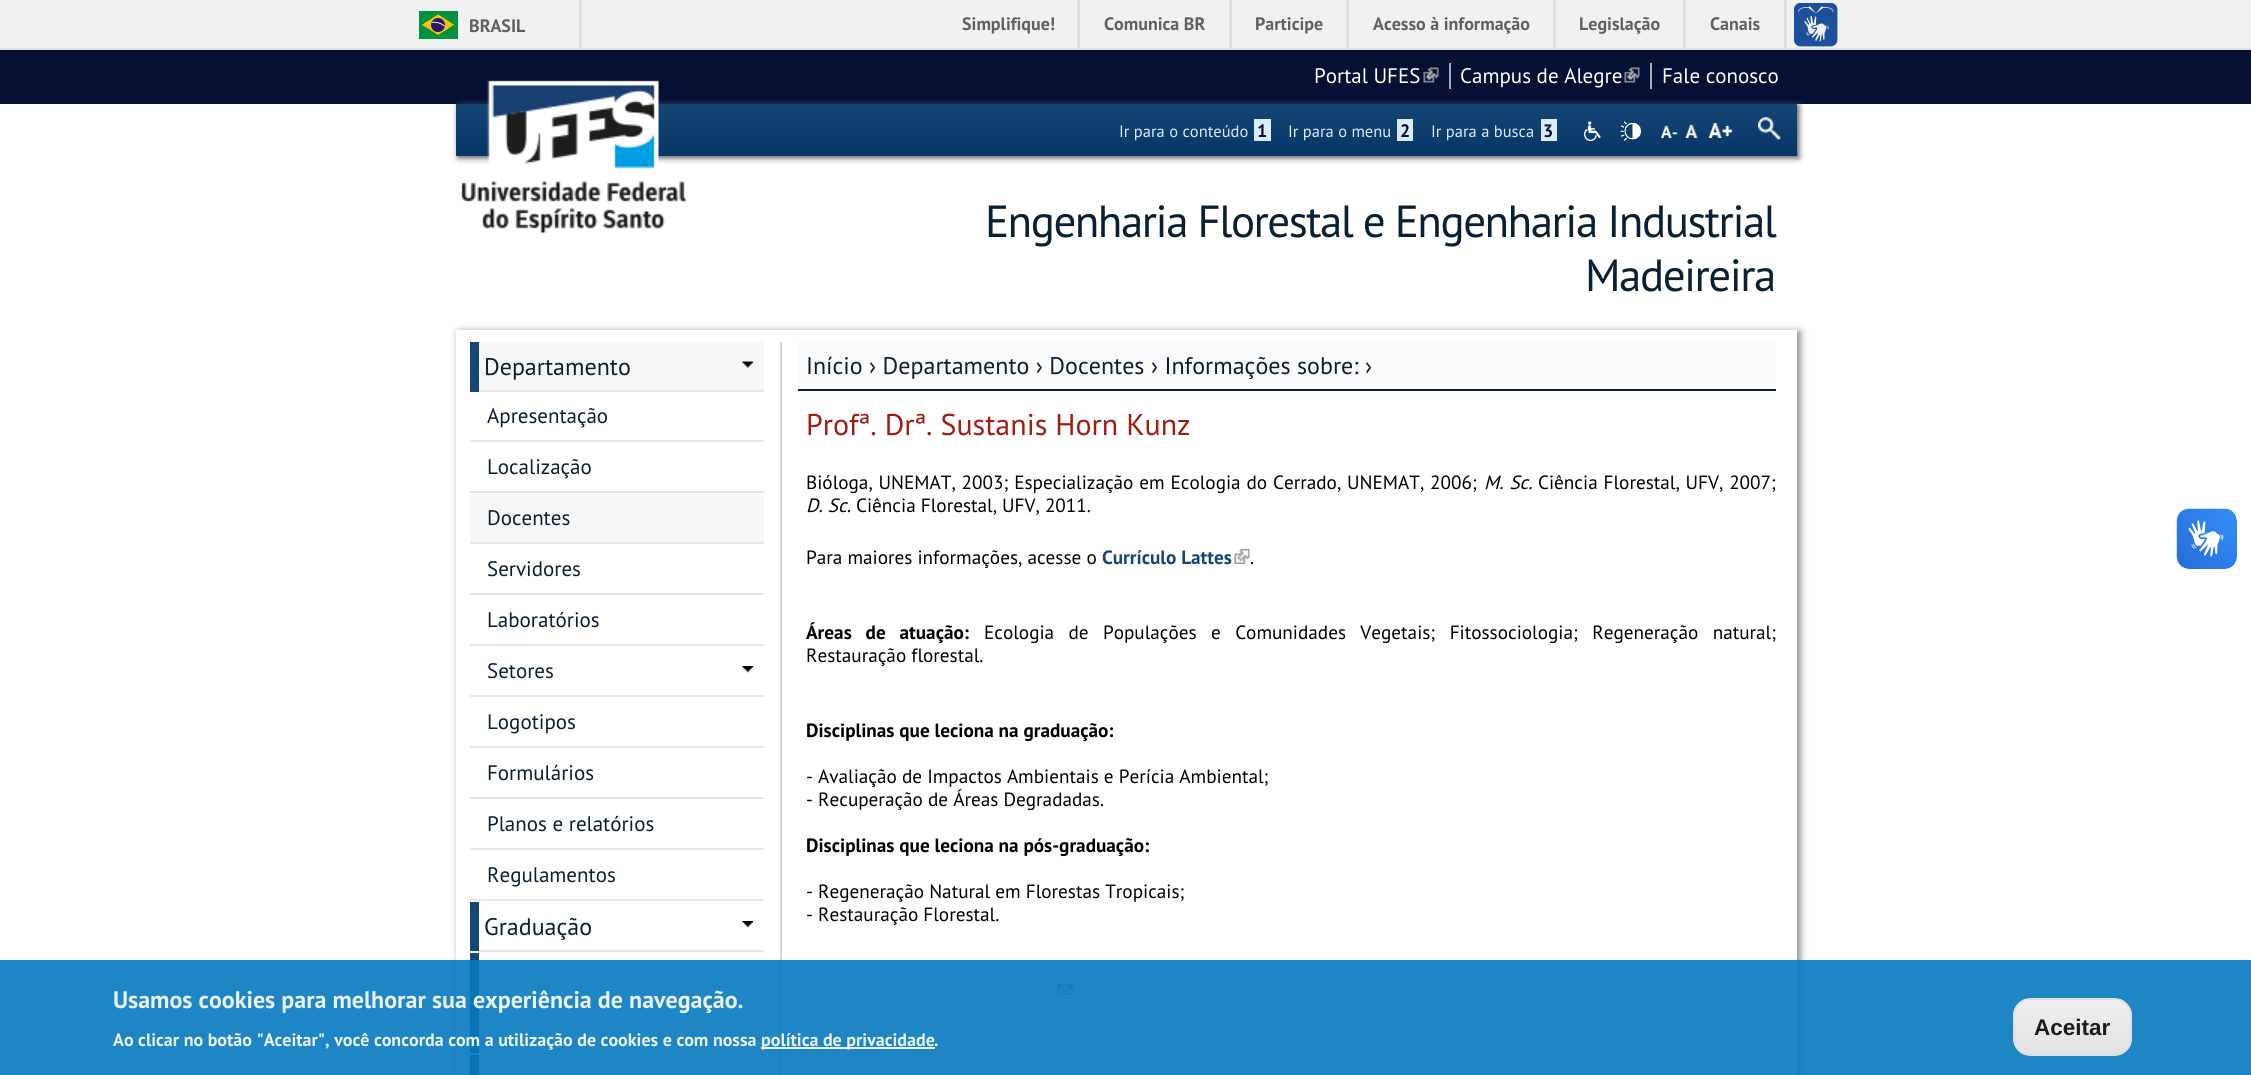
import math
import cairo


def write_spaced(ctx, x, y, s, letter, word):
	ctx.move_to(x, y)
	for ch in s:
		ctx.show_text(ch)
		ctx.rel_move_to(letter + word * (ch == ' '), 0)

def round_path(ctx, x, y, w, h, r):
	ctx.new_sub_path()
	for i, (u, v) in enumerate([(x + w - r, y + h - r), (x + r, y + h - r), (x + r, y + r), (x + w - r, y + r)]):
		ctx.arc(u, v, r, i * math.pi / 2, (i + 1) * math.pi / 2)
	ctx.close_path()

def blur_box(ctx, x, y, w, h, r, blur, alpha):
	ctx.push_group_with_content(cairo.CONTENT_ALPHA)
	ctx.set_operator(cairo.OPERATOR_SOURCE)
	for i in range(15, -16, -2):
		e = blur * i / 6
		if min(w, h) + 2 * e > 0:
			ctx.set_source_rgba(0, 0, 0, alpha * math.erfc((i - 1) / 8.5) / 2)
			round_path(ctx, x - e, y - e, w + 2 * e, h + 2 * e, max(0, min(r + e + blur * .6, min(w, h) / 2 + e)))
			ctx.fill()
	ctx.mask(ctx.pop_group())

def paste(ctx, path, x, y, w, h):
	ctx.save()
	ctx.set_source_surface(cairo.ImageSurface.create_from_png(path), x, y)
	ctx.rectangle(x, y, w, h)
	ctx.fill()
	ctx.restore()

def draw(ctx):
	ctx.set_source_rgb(1, 1, 1)
	ctx.paint()
	ctx.set_source_rgb(0.945, 0.945, 0.945)
	ctx.rectangle(0, 0, 2251, 48)
	ctx.fill()
	ctx.set_source_rgb(0.875, 0.875, 0.875)
	ctx.rectangle(0, 48, 2251, 2)
	ctx.rectangle(579, 0, 3, 48)
	ctx.fill()
	paste(ctx, 'media/1.png', 419, 11, 39, 28)
	ctx.select_font_face('PT Sans', cairo.FONT_SLANT_NORMAL, cairo.FONT_WEIGHT_BOLD)
	ctx.set_font_size(18)
	ctx.set_source_rgb(0.376, 0.376, 0.376)
	ctx.move_to(469, 32)
	ctx.show_text('BRASIL')
	ctx.set_source_rgb(0.875, 0.875, 0.875)
	ctx.rectangle(1077, 0, 3, 48)
	ctx.fill()
	ctx.set_source_rgb(0.376, 0.376, 0.376)
	ctx.move_to(962, 30)
	ctx.show_text('Simplifique!')
	ctx.set_source_rgb(0.875, 0.875, 0.875)
	ctx.rectangle(1229, 0, 3, 48)
	ctx.fill()
	ctx.set_source_rgb(0.376, 0.376, 0.376)
	ctx.move_to(1104, 30)
	ctx.show_text('Comunica BR')
	ctx.set_source_rgb(0.875, 0.875, 0.875)
	ctx.rectangle(1346, 0, 3, 48)
	ctx.fill()
	ctx.set_source_rgb(0.376, 0.376, 0.376)
	ctx.move_to(1255, 30)
	ctx.show_text('Participe')
	ctx.set_source_rgb(0.875, 0.875, 0.875)
	ctx.rectangle(1553, 0, 3, 48)
	ctx.fill()
	ctx.set_source_rgb(0.376, 0.376, 0.376)
	ctx.move_to(1373, 30)
	ctx.show_text('Acesso à informação')
	ctx.set_source_rgb(0.875, 0.875, 0.875)
	ctx.rectangle(1683, 0, 3, 48)
	ctx.fill()
	ctx.set_source_rgb(0.376, 0.376, 0.376)
	ctx.move_to(1579, 30)
	ctx.show_text('Legislação')
	ctx.set_source_rgb(0.875, 0.875, 0.875)
	ctx.rectangle(1784, 0, 3, 48)
	ctx.fill()
	ctx.set_source_rgb(0.376, 0.376, 0.376)
	ctx.move_to(1710, 30)
	ctx.show_text('Canais')
	paste(ctx, 'media/2.png', 1794, 3, 44, 44)
	ctx.set_source_rgb(0.02, 0.063, 0.204)
	ctx.rectangle(0, 50, 2251, 54)
	ctx.fill()
	ctx.set_source_rgb(0.643, 0.682, 0.725)
	ctx.rectangle(1449, 63, 2, 26)
	ctx.fill()
	ctx.select_font_face('PT Sans')
	ctx.set_font_size(21)
	ctx.set_source_rgb(1, 1, 1)
	ctx.move_to(1314, 83)
	ctx.show_text('Portal UFES')
	paste(ctx, 'media/3.png', 1423, 67, 16, 16)
	ctx.set_source_rgb(0.643, 0.682, 0.725)
	ctx.rectangle(1650, 63, 2, 26)
	ctx.fill()
	ctx.set_source_rgb(1, 1, 1)
	ctx.move_to(1460, 83)
	ctx.show_text('Campus de Alegre')
	paste(ctx, 'media/4.png', 1624, 67, 16, 16)
	ctx.move_to(1662, 83)
	ctx.show_text('Fale conosco')
	ctx.set_source_rgb(0.349, 0.349, 0.349)
	blur_box(ctx, 458, 105, 1341, 53, 0, 3, 1)
	gradient = cairo.LinearGradient(1127, 103, 1127, 156)
	gradient.add_color_stop_rgba(0, 0.082, 0.275, 0.459, 1)
	gradient.add_color_stop_rgba(1, 0.02, 0.212, 0.4, 1)
	ctx.set_source(gradient)
	ctx.rectangle(456, 104, 1341, 52)
	ctx.fill()
	paste(ctx, 'media/5.png', 461, 80, 225, 153)
	ctx.set_font_size(16.5)
	ctx.set_source_rgb(0.863, 0.925, 1)
	ctx.move_to(1119, 137)
	ctx.show_text('Ir para o conteúdo')
	ctx.rectangle(1254, 119, 17, 22)
	ctx.fill()
	ctx.select_font_face('PT Sans', cairo.FONT_SLANT_NORMAL, cairo.FONT_WEIGHT_BOLD)
	ctx.set_font_size(18)
	ctx.set_source_rgb(0.02, 0.063, 0.204)
	ctx.move_to(1257, 137)
	ctx.show_text('1')
	ctx.select_font_face('PT Sans')
	ctx.set_font_size(16.5)
	ctx.set_source_rgb(0.863, 0.925, 1)
	ctx.move_to(1288, 137)
	ctx.show_text('Ir para o menu')
	ctx.rectangle(1397, 119, 16, 22)
	ctx.fill()
	ctx.select_font_face('PT Sans', cairo.FONT_SLANT_NORMAL, cairo.FONT_WEIGHT_BOLD)
	ctx.set_font_size(18)
	ctx.set_source_rgb(0.02, 0.063, 0.204)
	ctx.move_to(1400, 137)
	ctx.show_text('2')
	ctx.select_font_face('PT Sans')
	ctx.set_font_size(16.5)
	ctx.set_source_rgb(0.863, 0.925, 1)
	ctx.move_to(1431, 137)
	ctx.show_text('Ir para a busca')
	ctx.rectangle(1541, 119, 16, 22)
	ctx.fill()
	ctx.select_font_face('PT Sans', cairo.FONT_SLANT_NORMAL, cairo.FONT_WEIGHT_BOLD)
	ctx.set_font_size(18)
	ctx.set_source_rgb(0.02, 0.063, 0.204)
	ctx.move_to(1543, 137)
	ctx.show_text('3')
	paste(ctx, 'media/6.png', 1584, 121, 17, 20)
	paste(ctx, 'media/7.png', 1620, 121, 21, 20)
	paste(ctx, 'media/8.png', 1661, 125, 17, 13)
	paste(ctx, 'media/9.png', 1685, 124, 13, 14)
	paste(ctx, 'media/10.png', 1708, 123, 25, 15)
	paste(ctx, 'media/11.png', 1758, 117, 23, 23)
	ctx.select_font_face('PT Sans')
	ctx.set_font_size(45)
	ctx.set_source_rgb(0.039, 0.122, 0.2)
	write_spaced(ctx, 985, 237, 'Engenharia Florestal e Engenharia Industrial', -1.5, 0)
	write_spaced(ctx, 1585, 291, 'Madeireira', -1.5, 0)
	ctx.save()
	ctx.set_fill_rule(cairo.FILL_RULE_EVEN_ODD)
	ctx.new_path()
	ctx.move_to(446, 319)
	ctx.line_to(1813, 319)
	ctx.line_to(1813, 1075)
	ctx.line_to(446, 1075)
	ctx.close_path()
	ctx.move_to(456, 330)
	ctx.line_to(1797, 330)
	ctx.line_to(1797, 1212)
	ctx.line_to(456, 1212)
	ctx.close_path()
	ctx.clip()
	ctx.set_source_rgb(0.502, 0.502, 0.502)
	blur_box(ctx, 459, 332, 1341, 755, 0, 4, 1)
	ctx.restore()
	ctx.set_source_rgb(0.082, 0.275, 0.463)
	ctx.rectangle(470, 342, 9, 50)
	ctx.fill()
	ctx.set_source_rgb(0.965, 0.965, 0.965)
	ctx.rectangle(479, 342, 285, 48)
	ctx.fill()
	paste(ctx, 'media/12.png', 742, 361, 11, 7)
	ctx.set_source_rgb(0.902, 0.902, 0.902)
	ctx.rectangle(479, 390, 285, 2)
	ctx.fill()
	ctx.set_font_size(24)
	ctx.set_source_rgb(0.039, 0.122, 0.2)
	ctx.move_to(484, 375)
	ctx.show_text('Departamento')
	ctx.set_source_rgb(0.902, 0.902, 0.902)
	ctx.rectangle(470, 440, 294, 2)
	ctx.fill()
	ctx.set_font_size(21)
	ctx.set_source_rgb(0.039, 0.122, 0.2)
	ctx.move_to(487, 423)
	ctx.show_text('Apresentação')
	ctx.set_source_rgb(0.902, 0.902, 0.902)
	ctx.rectangle(470, 491, 294, 2)
	ctx.fill()
	ctx.set_source_rgb(0.039, 0.122, 0.2)
	ctx.move_to(487, 474)
	ctx.show_text('Localização')
	ctx.set_source_rgb(0.965, 0.965, 0.965)
	ctx.rectangle(470, 494, 294, 48)
	ctx.fill()
	ctx.set_source_rgb(0.902, 0.902, 0.902)
	ctx.rectangle(470, 542, 294, 2)
	ctx.fill()
	ctx.set_source_rgb(0.039, 0.122, 0.2)
	ctx.move_to(487, 525)
	ctx.show_text('Docentes')
	ctx.set_source_rgb(0.902, 0.902, 0.902)
	ctx.rectangle(470, 593, 294, 2)
	ctx.fill()
	ctx.set_source_rgb(0.039, 0.122, 0.2)
	ctx.move_to(487, 576)
	ctx.show_text('Servidores')
	ctx.set_source_rgb(0.902, 0.902, 0.902)
	ctx.rectangle(470, 644, 294, 2)
	ctx.fill()
	ctx.set_source_rgb(0.039, 0.122, 0.2)
	ctx.move_to(487, 627)
	ctx.show_text('Laboratórios')
	paste(ctx, 'media/13.png', 742, 666, 11, 7)
	ctx.set_source_rgb(0.902, 0.902, 0.902)
	ctx.rectangle(470, 695, 294, 2)
	ctx.fill()
	ctx.set_source_rgb(0.039, 0.122, 0.2)
	ctx.move_to(487, 678)
	ctx.show_text('Setores')
	ctx.set_source_rgb(0.902, 0.902, 0.902)
	ctx.rectangle(470, 746, 294, 2)
	ctx.fill()
	ctx.set_source_rgb(0.039, 0.122, 0.2)
	ctx.move_to(487, 729)
	ctx.show_text('Logotipos')
	ctx.set_source_rgb(0.902, 0.902, 0.902)
	ctx.rectangle(470, 797, 294, 2)
	ctx.fill()
	ctx.set_source_rgb(0.039, 0.122, 0.2)
	ctx.move_to(487, 780)
	ctx.show_text('Formulários')
	ctx.set_source_rgb(0.902, 0.902, 0.902)
	ctx.rectangle(470, 848, 294, 2)
	ctx.fill()
	ctx.set_source_rgb(0.039, 0.122, 0.2)
	ctx.move_to(487, 831)
	ctx.show_text('Planos e relatórios')
	ctx.set_source_rgb(0.902, 0.902, 0.902)
	ctx.rectangle(470, 899, 294, 2)
	ctx.fill()
	ctx.set_source_rgb(0.039, 0.122, 0.2)
	ctx.move_to(487, 882)
	ctx.show_text('Regulamentos')
	ctx.set_source_rgb(0.082, 0.275, 0.463)
	ctx.rectangle(470, 902, 9, 49)
	ctx.fill()
	paste(ctx, 'media/13.png', 742, 921, 11, 7)
	ctx.set_source_rgb(0.902, 0.902, 0.902)
	ctx.rectangle(479, 950, 285, 2)
	ctx.fill()
	ctx.set_font_size(24)
	ctx.set_source_rgb(0.039, 0.122, 0.2)
	ctx.move_to(484, 935)
	ctx.show_text('Graduação')
	ctx.set_source_rgb(0.082, 0.275, 0.463)
	ctx.rectangle(470, 953, 9, 49)
	ctx.fill()
	ctx.set_source_rgb(0.902, 0.902, 0.902)
	ctx.rectangle(479, 1001, 285, 2)
	ctx.fill()
	ctx.set_source_rgb(0.082, 0.275, 0.463)
	ctx.rectangle(470, 1004, 9, 49)
	ctx.fill()
	ctx.set_source_rgb(0.902, 0.902, 0.902)
	ctx.rectangle(479, 1052, 285, 2)
	ctx.fill()
	ctx.set_source_rgb(0.082, 0.275, 0.463)
	ctx.rectangle(470, 1055, 9, 20)
	ctx.fill()
	ctx.set_source_rgb(0.839, 0.839, 0.839)
	ctx.rectangle(780, 342, 2, 733)
	ctx.fill()
	ctx.set_source_rgb(0.984, 0.984, 0.984)
	ctx.rectangle(798, 342, 978, 47)
	ctx.fill()
	ctx.set_source_rgb(0.039, 0.122, 0.2)
	ctx.rectangle(798, 389, 978, 2)
	ctx.fill()
	ctx.move_to(806, 374)
	ctx.show_text('Início › Departamento › Docentes › Informações sobre: ›')
	ctx.set_font_size(30)
	ctx.set_source_rgb(0.631, 0.114, 0.078)
	ctx.move_to(806, 435)
	ctx.show_text('Profª. Drª. Sustanis Horn Kunz')
	ctx.set_font_size(19.2)
	ctx.set_source_rgb(0, 0, 0)
	write_spaced(ctx, 806, 489, 'Bióloga, UNEMAT, 2003; Especialização em Ecologia do Cerrado, UNEMAT, 2006;', 0, 0.75)
	ctx.select_font_face('PT Sans', cairo.FONT_SLANT_ITALIC)
	write_spaced(ctx, 1484, 489, 'M. Sc.', 0, 1)
	ctx.select_font_face('PT Sans')
	write_spaced(ctx, 1538, 489, 'Ciência Florestal, UFV, 2007;', 0, 0.75)
	ctx.select_font_face('PT Sans', cairo.FONT_SLANT_ITALIC)
	ctx.move_to(806, 512)
	ctx.show_text('D. Sc.')
	ctx.select_font_face('PT Sans')
	ctx.move_to(856, 512)
	ctx.show_text('Ciência Florestal, UFV, 2011.')
	ctx.move_to(806, 564)
	ctx.show_text('Para maiores informações, acesse o')
	ctx.select_font_face('PT Sans', cairo.FONT_SLANT_NORMAL, cairo.FONT_WEIGHT_BOLD)
	ctx.set_source_rgb(0.082, 0.275, 0.471)
	ctx.move_to(1102, 564)
	ctx.show_text('Currículo Lattes')
	paste(ctx, 'media/14.png', 1234, 549, 16, 15)
	ctx.select_font_face('PT Sans')
	ctx.set_source_rgb(0, 0, 0)
	ctx.move_to(1250, 564)
	ctx.show_text('.')
	ctx.select_font_face('PT Sans', cairo.FONT_SLANT_NORMAL, cairo.FONT_WEIGHT_BOLD)
	write_spaced(ctx, 806, 639, 'Áreas de atuação:', 0, 9)
	ctx.select_font_face('PT Sans')
	write_spaced(ctx, 984, 639, 'Ecologia de Populações e Comunidades Vegetais; Fitossociologia; Regeneração natural;', 0, 9.25)
	ctx.move_to(806, 662)
	ctx.show_text('Restauração florestal.')
	ctx.select_font_face('PT Sans', cairo.FONT_SLANT_NORMAL, cairo.FONT_WEIGHT_BOLD)
	ctx.move_to(806, 737)
	ctx.show_text('Disciplinas que leciona na graduação:')
	ctx.select_font_face('PT Sans')
	ctx.move_to(806, 783)
	ctx.show_text('- Avaliação de Impactos Ambientais e Perícia Ambiental;')
	ctx.move_to(806, 806)
	ctx.show_text('- Recuperação de Áreas Degradadas.')
	ctx.select_font_face('PT Sans', cairo.FONT_SLANT_NORMAL, cairo.FONT_WEIGHT_BOLD)
	ctx.move_to(806, 852)
	ctx.show_text('Disciplinas que leciona na pós-graduação:')
	ctx.select_font_face('PT Sans')
	ctx.move_to(806, 898)
	ctx.show_text('- Regeneração Natural em Florestas Tropicais;')
	ctx.move_to(806, 921)
	ctx.show_text('- Restauração Florestal.')
	paste(ctx, 'media/15.png', 1057, 983, 16, 12)
	paste(ctx, 'media/16.png', 2176, 508, 61, 61)
	paste(ctx, 'media/17.png', 2177, 509, 60, 60)
	ctx.set_source_rgba(0.027, 0.475, 0.749, 0.9)
	ctx.rectangle(0, 960, 2251, 115)
	ctx.fill()
	ctx.select_font_face('PT Sans', cairo.FONT_SLANT_NORMAL, cairo.FONT_WEIGHT_BOLD)
	ctx.set_font_size(24)
	ctx.set_source_rgb(0.914, 0.953, 0.976)
	ctx.move_to(113, 1008)
	ctx.show_text('Usamos cookies para melhorar sua experiência de navegação.')
	ctx.set_font_size(18)
	ctx.move_to(113, 1046)
	ctx.show_text('Ao clicar no botão "Aceitar", você concorda com a utilização de cookies e com nossa')
	ctx.set_source_rgba(1, 1, 1, 0.9)
	ctx.rectangle(761, 1047, 174, 2)
	ctx.fill()
	ctx.set_source_rgb(0.914, 0.953, 0.976)
	ctx.move_to(761, 1046)
	ctx.show_text('política de privacidade')
	ctx.move_to(934, 1046)
	ctx.show_text('.')
	ctx.save()
	round_path(ctx, 2013, 998, 119, 58, 18)
	ctx.clip()
	gradient = cairo.LinearGradient(2072, 999, 2072, 1055)
	gradient.add_color_stop_rgba(0.05, 0.937, 0.937, 0.937, 1)
	gradient.add_color_stop_rgba(1, 0.886, 0.886, 0.886, 1)
	ctx.set_source(gradient)
	ctx.rectangle(2013, 999, 119, 56)
	ctx.fill()
	ctx.restore()
	ctx.set_source_rgb(1, 1, 1)
	ctx.new_path()
	ctx.move_to(2031, 1000)
	ctx.line_to(2114, 1000)
	ctx.curve_to(2123, 1000, 2130, 1008, 2130, 1017)
	ctx.line_to(2130, 1016)
	ctx.curve_to(2130, 1007, 2122, 999, 2113, 999)
	ctx.line_to(2032, 999)
	ctx.curve_to(2026, 999, 2021, 1002, 2018, 1006)
	ctx.curve_to(2021, 1003, 2026, 1000, 2031, 1000)
	ctx.close_path()
	ctx.fill()
	round_path(ctx, 2014, 999, 117, 56, 17)
	ctx.set_source_rgb(0.878, 0.878, 0.878)
	ctx.stroke()
	ctx.select_font_face('Liberation Sans', cairo.FONT_SLANT_NORMAL, cairo.FONT_WEIGHT_BOLD)
	ctx.set_font_size(22.5)
	ctx.set_source_rgb(0.102, 0.102, 0.102)
	ctx.move_to(2034, 1035)
	ctx.show_text('Aceitar')


surface = cairo.ImageSurface(cairo.FORMAT_RGB24, 2251, 1075)
ctx = cairo.Context(surface)
options = cairo.FontOptions()
options.set_hint_metrics(cairo.HINT_METRICS_OFF)
options.set_hint_style(cairo.HINT_STYLE_NONE)
ctx.set_font_options(options)
ctx.set_miter_limit(4)
draw(ctx)
surface.write_to_png('image.png')
